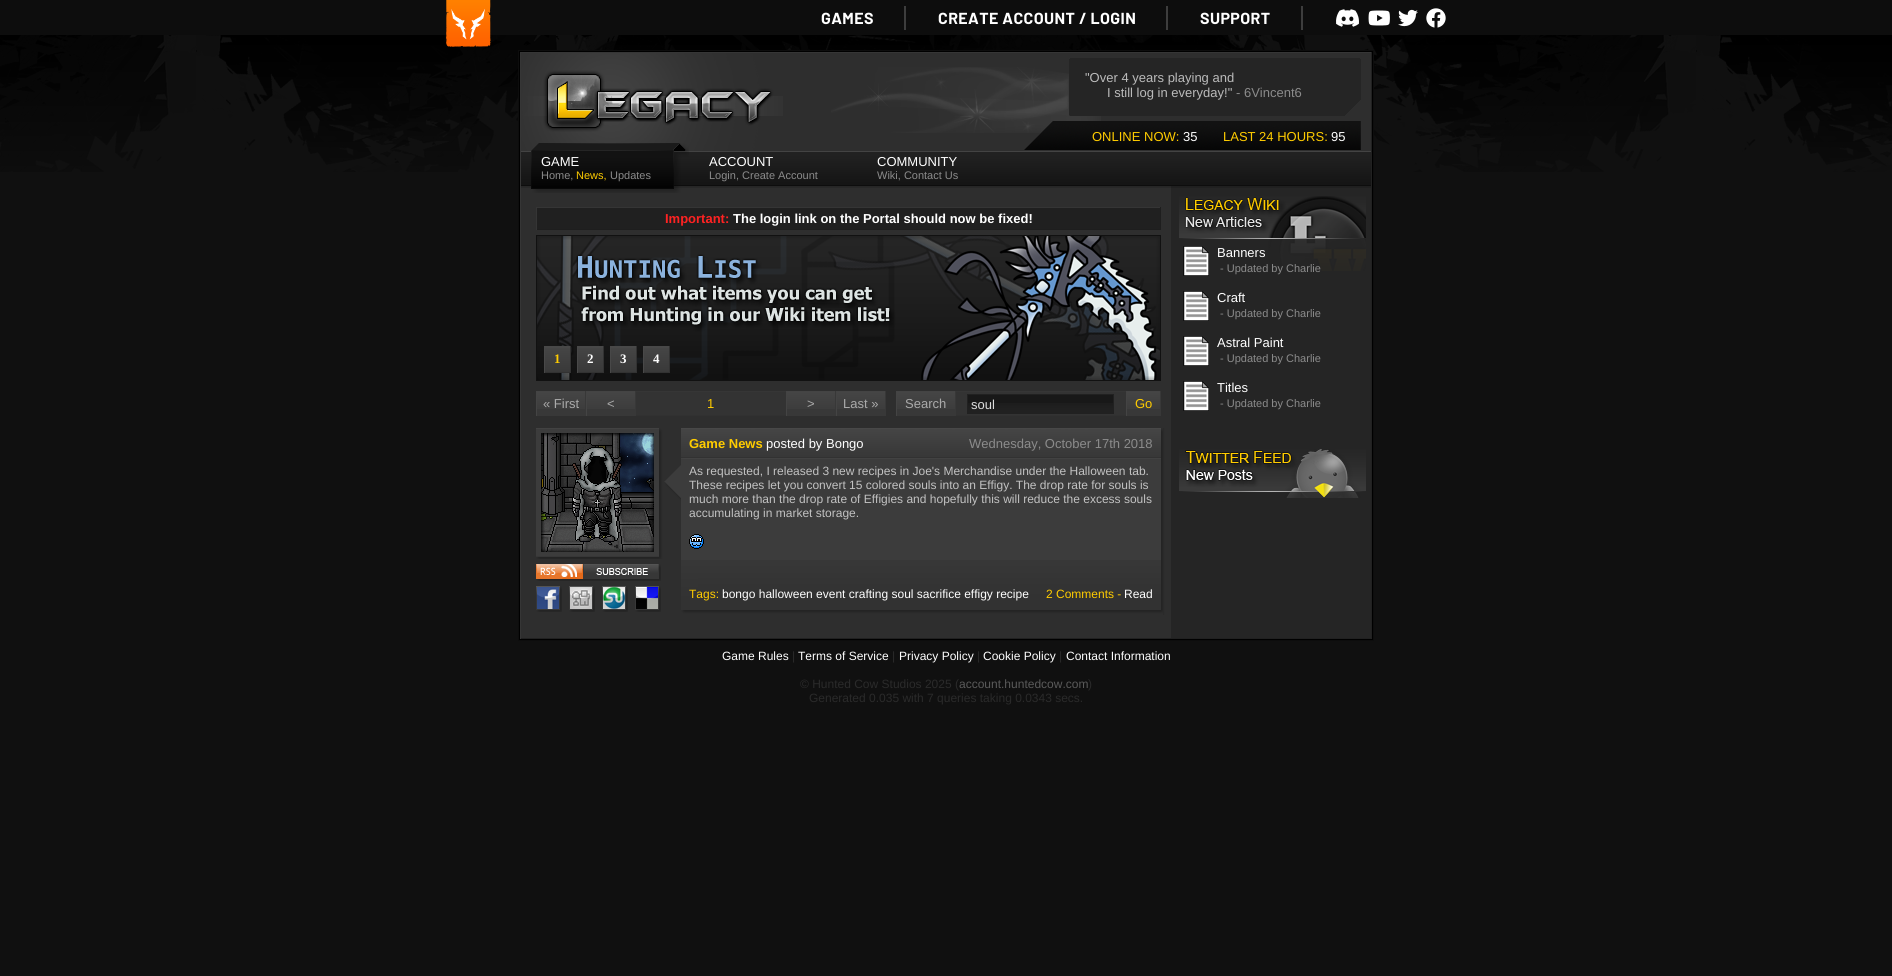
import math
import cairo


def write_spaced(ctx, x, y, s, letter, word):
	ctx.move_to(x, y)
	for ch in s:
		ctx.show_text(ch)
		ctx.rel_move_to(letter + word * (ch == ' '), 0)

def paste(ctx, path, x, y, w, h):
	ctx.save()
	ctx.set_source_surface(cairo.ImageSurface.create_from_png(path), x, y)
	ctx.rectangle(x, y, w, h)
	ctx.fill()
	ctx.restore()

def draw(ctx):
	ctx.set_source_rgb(0.063, 0.063, 0.063)
	ctx.paint()
	paste(ctx, 'media/1.png', 0, 35, 1892, 137)
	ctx.set_source_rgb(0.051, 0.051, 0.051)
	ctx.rectangle(0, 0, 1892, 35)
	ctx.fill()
	paste(ctx, 'media/2.png', 446, 0, 45, 47)
	ctx.select_font_face('Barlow', cairo.FONT_SLANT_NORMAL, cairo.FONT_WEIGHT_BOLD)
	ctx.set_font_size(16)
	ctx.set_source_rgb(1, 1, 1)
	write_spaced(ctx, 821, 24, 'GAMES', 0.4, 0)
	ctx.set_source_rgb(0.239, 0.239, 0.239)
	ctx.rectangle(904, 6, 2, 24)
	ctx.fill()
	ctx.set_source_rgb(1, 1, 1)
	write_spaced(ctx, 938, 24, 'CREATE ACCOUNT / LOGIN', 0.4, 0)
	ctx.set_source_rgb(0.239, 0.239, 0.239)
	ctx.rectangle(1166, 6, 2, 24)
	ctx.fill()
	ctx.set_source_rgb(1, 1, 1)
	write_spaced(ctx, 1200, 24, 'SUPPORT', 0.4, 0)
	ctx.set_source_rgb(0.239, 0.239, 0.239)
	ctx.rectangle(1301, 6, 2, 24)
	ctx.fill()
	paste(ctx, 'media/3.png', 1336, 9, 23, 18)
	paste(ctx, 'media/4.png', 1368, 10, 22, 16)
	paste(ctx, 'media/5.png', 1398, 9, 20, 18)
	paste(ctx, 'media/6.png', 1426, 8, 20, 20)
	ctx.set_source_rgb(0, 0, 0)
	ctx.rectangle(518.5, 50.5, 855, 590)
	ctx.fill_preserve()
	ctx.set_source_rgb(0.051, 0.051, 0.051)
	ctx.set_line_width(1)
	ctx.stroke()
	ctx.set_source_rgb(0.18, 0.18, 0.18)
	ctx.rectangle(521, 186, 650, 452)
	ctx.fill()
	ctx.set_source_rgb(0.145, 0.145, 0.145)
	ctx.rectangle(1171, 186, 200, 452)
	ctx.fill()
	ctx.set_source_rgb(0.212, 0.212, 0.212)
	ctx.rectangle(520, 52, 852, 1)
	ctx.fill()
	ctx.set_source_rgb(0.129, 0.129, 0.129)
	ctx.rectangle(1371, 52, 1, 587)
	ctx.rectangle(520, 638, 852, 1)
	ctx.fill()
	ctx.set_source_rgb(0.212, 0.212, 0.212)
	ctx.rectangle(520, 52, 1, 587)
	ctx.fill()
	ctx.set_source_rgb(0.18, 0.18, 0.18)
	ctx.rectangle(783, 53, 588, 98)
	ctx.fill()
	paste(ctx, 'media/7.png', 831, 67, 270, 66)
	paste(ctx, 'media/8.png', 521, 53, 262, 98)
	paste(ctx, 'media/9.png', 1069, 58, 292, 58)
	ctx.select_font_face('Liberation Sans')
	ctx.set_font_size(13)
	ctx.set_source_rgb(0.733, 0.733, 0.733)
	ctx.move_to(1085, 82)
	ctx.show_text('"Over 4 years playing and')
	ctx.move_to(1107, 97)
	ctx.show_text('I still log in everyday!"')
	ctx.set_source_rgb(0.545, 0.545, 0.545)
	ctx.move_to(1236, 97)
	ctx.show_text('- 6Vincent6')
	paste(ctx, 'media/10.png', 1024, 121, 337, 29)
	ctx.set_source_rgb(1, 0.8, 0)
	ctx.move_to(1092, 141)
	ctx.show_text('ONLINE NOW:')
	ctx.set_source_rgb(1, 1, 1)
	ctx.move_to(1183, 141)
	ctx.show_text('35')
	ctx.set_source_rgb(1, 0.8, 0)
	ctx.move_to(1223, 141)
	ctx.show_text('LAST 24 HOURS:')
	ctx.set_source_rgb(1, 1, 1)
	ctx.move_to(1331, 141)
	ctx.show_text('95')
	paste(ctx, 'media/11.png', 521, 151, 850, 37)
	paste(ctx, 'media/12.png', 531, 143, 158, 50)
	ctx.move_to(541, 166)
	ctx.show_text('GAME')
	ctx.set_font_size(11)
	ctx.set_source_rgb(0.545, 0.545, 0.545)
	ctx.move_to(541, 179)
	ctx.show_text('Home,')
	ctx.set_source_rgb(1, 0.8, 0)
	ctx.move_to(576, 179)
	ctx.show_text('News,')
	ctx.set_source_rgb(0.545, 0.545, 0.545)
	ctx.move_to(610, 179)
	ctx.show_text('Updates')
	ctx.set_font_size(13)
	ctx.set_source_rgb(1, 1, 1)
	ctx.move_to(709, 166)
	ctx.show_text('ACCOUNT')
	ctx.set_font_size(11)
	ctx.set_source_rgb(0.545, 0.545, 0.545)
	ctx.move_to(709, 179)
	ctx.show_text('Login, Create Account')
	ctx.set_font_size(13)
	ctx.set_source_rgb(1, 1, 1)
	ctx.move_to(877, 166)
	ctx.show_text('COMMUNITY')
	ctx.set_font_size(11)
	ctx.set_source_rgb(0.545, 0.545, 0.545)
	ctx.move_to(877, 179)
	ctx.show_text('Wiki, Contact Us')
	ctx.set_source_rgb(0.125, 0.125, 0.125)
	ctx.rectangle(537, 208, 623, 21)
	ctx.fill()
	ctx.set_source_rgb(0.208, 0.208, 0.208)
	ctx.rectangle(536, 207, 625, 1)
	ctx.fill()
	ctx.set_source_rgb(0.118, 0.118, 0.118)
	ctx.rectangle(1160, 207, 1, 23)
	ctx.rectangle(536, 229, 625, 1)
	ctx.fill()
	ctx.set_source_rgb(0.208, 0.208, 0.208)
	ctx.rectangle(536, 207, 1, 23)
	ctx.fill()
	ctx.select_font_face('Liberation Sans', cairo.FONT_SLANT_NORMAL, cairo.FONT_WEIGHT_BOLD)
	ctx.set_font_size(13)
	ctx.set_source_rgb(1, 0.133, 0.133)
	ctx.move_to(665, 223)
	ctx.show_text('Important:')
	ctx.set_source_rgb(1, 1, 1)
	ctx.move_to(733, 223)
	ctx.show_text('The login link on the Portal should now be fixed!')
	paste(ctx, 'media/13.png', 536, 235, 625, 146)
	paste(ctx, 'media/14.png', 537, 236, 623, 144)
	paste(ctx, 'media/15.png', 545, 347, 25, 25)
	ctx.set_source_rgb(0.282, 0.282, 0.282)
	ctx.rectangle(544, 346, 27, 1)
	ctx.fill()
	ctx.set_source_rgb(0.196, 0.196, 0.196)
	ctx.rectangle(570, 346, 1, 27)
	ctx.rectangle(544, 372, 27, 1)
	ctx.fill()
	ctx.set_source_rgb(0.282, 0.282, 0.282)
	ctx.rectangle(544, 346, 1, 27)
	ctx.fill()
	ctx.select_font_face('Liberation Serif', cairo.FONT_SLANT_NORMAL, cairo.FONT_WEIGHT_BOLD)
	ctx.set_source_rgb(1, 0.8, 0)
	ctx.move_to(554, 363)
	ctx.show_text('1')
	paste(ctx, 'media/15.png', 578, 347, 25, 25)
	ctx.set_source_rgb(0.282, 0.282, 0.282)
	ctx.rectangle(577, 346, 27, 1)
	ctx.fill()
	ctx.set_source_rgb(0.196, 0.196, 0.196)
	ctx.rectangle(603, 346, 1, 27)
	ctx.rectangle(577, 372, 27, 1)
	ctx.fill()
	ctx.set_source_rgb(0.282, 0.282, 0.282)
	ctx.rectangle(577, 346, 1, 27)
	ctx.fill()
	ctx.set_source_rgb(1, 1, 1)
	ctx.move_to(587, 363)
	ctx.show_text('2')
	paste(ctx, 'media/15.png', 611, 347, 25, 25)
	ctx.set_source_rgb(0.282, 0.282, 0.282)
	ctx.rectangle(610, 346, 27, 1)
	ctx.fill()
	ctx.set_source_rgb(0.196, 0.196, 0.196)
	ctx.rectangle(636, 346, 1, 27)
	ctx.rectangle(610, 372, 27, 1)
	ctx.fill()
	ctx.set_source_rgb(0.282, 0.282, 0.282)
	ctx.rectangle(610, 346, 1, 27)
	ctx.fill()
	ctx.set_source_rgb(1, 1, 1)
	ctx.move_to(620, 363)
	ctx.show_text('3')
	paste(ctx, 'media/15.png', 644, 347, 25, 25)
	ctx.set_source_rgb(0.282, 0.282, 0.282)
	ctx.rectangle(643, 346, 27, 1)
	ctx.fill()
	ctx.set_source_rgb(0.196, 0.196, 0.196)
	ctx.rectangle(669, 346, 1, 27)
	ctx.rectangle(643, 372, 27, 1)
	ctx.fill()
	ctx.set_source_rgb(0.282, 0.282, 0.282)
	ctx.rectangle(643, 346, 1, 27)
	ctx.fill()
	ctx.set_source_rgb(1, 1, 1)
	ctx.move_to(653, 363)
	ctx.show_text('4')
	ctx.set_source_rgb(0.22, 0.22, 0.22)
	ctx.rectangle(537, 409, 48, 7)
	ctx.fill()
	paste(ctx, 'media/16.png', 537, 392, 48, 17)
	ctx.set_source_rgb(0.267, 0.267, 0.267)
	ctx.rectangle(536, 391, 100, 1)
	ctx.fill()
	ctx.set_source_rgb(0.22, 0.22, 0.22)
	ctx.rectangle(585, 391, 1, 25)
	ctx.fill()
	ctx.set_source_rgb(0.267, 0.267, 0.267)
	ctx.rectangle(536, 391, 1, 25)
	ctx.fill()
	ctx.select_font_face('Liberation Sans')
	ctx.set_source_rgb(0.667, 0.667, 0.667)
	ctx.move_to(543, 408)
	ctx.show_text('« First')
	ctx.set_source_rgb(0.2, 0.2, 0.2)
	ctx.rectangle(636, 392, 150, 23)
	ctx.fill()
	ctx.set_source_rgb(0.212, 0.212, 0.212)
	ctx.rectangle(636, 391, 150, 1)
	ctx.fill()
	ctx.set_source_rgb(0.192, 0.192, 0.192)
	ctx.rectangle(636, 415, 150, 1)
	ctx.fill()
	ctx.set_source_rgb(0.22, 0.22, 0.22)
	ctx.rectangle(587, 409, 48, 7)
	ctx.fill()
	paste(ctx, 'media/16.png', 587, 392, 48, 17)
	ctx.rectangle(635, 391, 1, 25)
	ctx.fill()
	ctx.set_source_rgb(0.267, 0.267, 0.267)
	ctx.rectangle(586, 391, 1, 25)
	ctx.fill()
	ctx.set_source_rgb(0.667, 0.667, 0.667)
	ctx.move_to(607, 408)
	ctx.show_text('<')
	ctx.set_source_rgb(1, 0.8, 0)
	ctx.move_to(707, 408)
	ctx.show_text('1')
	ctx.set_source_rgb(0.22, 0.22, 0.22)
	ctx.rectangle(787, 409, 48, 7)
	ctx.fill()
	paste(ctx, 'media/16.png', 787, 392, 48, 17)
	ctx.set_source_rgb(0.267, 0.267, 0.267)
	ctx.rectangle(786, 391, 100, 1)
	ctx.fill()
	ctx.set_source_rgb(0.22, 0.22, 0.22)
	ctx.rectangle(835, 391, 1, 25)
	ctx.fill()
	ctx.set_source_rgb(0.267, 0.267, 0.267)
	ctx.rectangle(786, 391, 1, 25)
	ctx.fill()
	ctx.set_source_rgb(0.667, 0.667, 0.667)
	ctx.move_to(807, 408)
	ctx.show_text('>')
	ctx.set_source_rgb(0.22, 0.22, 0.22)
	ctx.rectangle(837, 409, 48, 7)
	ctx.fill()
	paste(ctx, 'media/16.png', 837, 392, 48, 17)
	ctx.rectangle(885, 391, 1, 25)
	ctx.fill()
	ctx.set_source_rgb(0.267, 0.267, 0.267)
	ctx.rectangle(836, 391, 1, 25)
	ctx.fill()
	ctx.set_source_rgb(0.667, 0.667, 0.667)
	ctx.move_to(843, 408)
	ctx.show_text('Last »')
	ctx.set_source_rgb(0.22, 0.22, 0.22)
	ctx.rectangle(897, 409, 58, 7)
	ctx.fill()
	paste(ctx, 'media/17.png', 897, 392, 58, 17)
	ctx.set_source_rgb(0.267, 0.267, 0.267)
	ctx.rectangle(896, 391, 60, 1)
	ctx.fill()
	ctx.set_source_rgb(0.22, 0.22, 0.22)
	ctx.rectangle(955, 391, 1, 25)
	ctx.fill()
	ctx.set_source_rgb(0.267, 0.267, 0.267)
	ctx.rectangle(896, 391, 1, 25)
	ctx.fill()
	ctx.set_source_rgb(0.667, 0.667, 0.667)
	ctx.move_to(905, 408)
	ctx.show_text('Search')
	ctx.set_source_rgb(0.2, 0.2, 0.2)
	ctx.rectangle(956, 392, 170, 23)
	ctx.fill()
	ctx.set_source_rgb(0.212, 0.212, 0.212)
	ctx.rectangle(956, 391, 170, 1)
	ctx.fill()
	ctx.set_source_rgb(0.192, 0.192, 0.192)
	ctx.rectangle(956, 415, 170, 1)
	ctx.fill()
	ctx.set_source_rgb(0.094, 0.094, 0.094)
	ctx.rectangle(968, 395, 145, 8)
	ctx.fill()
	paste(ctx, 'media/18.png', 968, 403, 145, 10)
	ctx.rectangle(967.5, 394.5, 146, 19)
	ctx.set_source_rgb(0.129, 0.129, 0.129)
	ctx.stroke()
	ctx.set_source_rgb(0.867, 0.867, 0.867)
	ctx.move_to(971, 409)
	ctx.show_text('soul')
	ctx.set_source_rgb(0.22, 0.22, 0.22)
	ctx.rectangle(1127, 409, 33, 7)
	ctx.fill()
	paste(ctx, 'media/19.png', 1127, 392, 33, 17)
	ctx.set_source_rgb(0.267, 0.267, 0.267)
	ctx.rectangle(1126, 391, 35, 1)
	ctx.fill()
	ctx.set_source_rgb(0.22, 0.22, 0.22)
	ctx.rectangle(1160, 391, 1, 25)
	ctx.fill()
	ctx.set_source_rgb(0.267, 0.267, 0.267)
	ctx.rectangle(1126, 391, 1, 25)
	ctx.fill()
	ctx.set_source_rgb(1, 0.8, 0)
	ctx.move_to(1135, 408)
	ctx.show_text('Go')
	paste(ctx, 'media/20.png', 536, 428, 145, 131)
	paste(ctx, 'media/21.png', 572, 447, 50, 95)
	paste(ctx, 'media/22.png', 536, 564, 125, 17)
	paste(ctx, 'media/23.png', 536, 586, 26, 26)
	paste(ctx, 'media/24.png', 569, 586, 26, 26)
	paste(ctx, 'media/25.png', 602, 586, 26, 26)
	paste(ctx, 'media/26.png', 635, 586, 26, 26)
	ctx.set_source_rgb(0.235, 0.235, 0.235)
	ctx.rectangle(681, 459, 480, 101)
	ctx.fill()
	paste(ctx, 'media/27.png', 1161, 428, 5, 187)
	paste(ctx, 'media/28.png', 681, 428, 482, 31)
	ctx.select_font_face('Liberation Sans', cairo.FONT_SLANT_NORMAL, cairo.FONT_WEIGHT_BOLD)
	ctx.set_source_rgb(1, 0.8, 0)
	ctx.move_to(689, 448)
	ctx.show_text('Game News')
	ctx.select_font_face('Liberation Sans')
	ctx.set_source_rgb(1, 1, 1)
	ctx.move_to(766, 448)
	ctx.show_text('posted by Bongo')
	ctx.set_source_rgb(0.545, 0.545, 0.545)
	ctx.move_to(969, 448)
	ctx.show_text('Wednesday, October 17th 2018')
	paste(ctx, 'media/29.png', 681, 560, 482, 55)
	ctx.set_font_size(12)
	ctx.set_source_rgb(0.761, 0.761, 0.761)
	for x, y, s in [
		(689, 475, 'As requested, I released 3 new recipes in Joe\'s Merchandise under the Halloween tab.'),
		(689, 489, 'These recipes let you convert 15 colored souls into an Effigy. The drop rate for souls is'),
		(689, 503, 'much more than the drop rate of Effigies and hopefully this will reduce the excess souls'),
		(689, 517, 'accumulating in market storage.'),
	]:
		ctx.move_to(x, y)
		ctx.show_text(s)
	paste(ctx, 'media/30.png', 689, 534, 15, 15)
	ctx.set_source_rgb(1, 0.8, 0)
	ctx.move_to(689, 598)
	ctx.show_text('Tags:')
	ctx.set_source_rgb(1, 1, 1)
	ctx.move_to(722, 598)
	ctx.show_text('bongo halloween event crafting soul sacrifice effigy recipe')
	ctx.set_source_rgb(1, 0.8, 0)
	ctx.move_to(1046, 598)
	ctx.show_text('2 Comments -')
	ctx.set_source_rgb(1, 1, 1)
	ctx.move_to(1124, 598)
	ctx.show_text('Read')
	paste(ctx, 'media/31.png', 1179, 196, 187, 75)
	paste(ctx, 'media/32.png', 1183, 246, 26, 30)
	ctx.set_font_size(13)
	ctx.move_to(1217, 257)
	ctx.show_text('Banners')
	ctx.set_font_size(11)
	ctx.set_source_rgb(0.545, 0.545, 0.545)
	ctx.move_to(1220, 272)
	ctx.show_text('- Updated by Charlie')
	paste(ctx, 'media/33.png', 1183, 291, 26, 30)
	ctx.set_font_size(13)
	ctx.set_source_rgb(1, 1, 1)
	ctx.move_to(1217, 302)
	ctx.show_text('Craft')
	ctx.set_font_size(11)
	ctx.set_source_rgb(0.545, 0.545, 0.545)
	ctx.move_to(1220, 317)
	ctx.show_text('- Updated by Charlie')
	paste(ctx, 'media/33.png', 1183, 336, 26, 30)
	ctx.set_font_size(13)
	ctx.set_source_rgb(1, 1, 1)
	ctx.move_to(1217, 347)
	ctx.show_text('Astral Paint')
	ctx.set_font_size(11)
	ctx.set_source_rgb(0.545, 0.545, 0.545)
	ctx.move_to(1220, 362)
	ctx.show_text('- Updated by Charlie')
	paste(ctx, 'media/33.png', 1183, 381, 26, 30)
	ctx.set_font_size(13)
	ctx.set_source_rgb(1, 1, 1)
	ctx.move_to(1217, 392)
	ctx.show_text('Titles')
	ctx.set_font_size(11)
	ctx.set_source_rgb(0.545, 0.545, 0.545)
	ctx.move_to(1220, 407)
	ctx.show_text('- Updated by Charlie')
	paste(ctx, 'media/34.png', 1179, 449, 187, 49)
	ctx.set_font_size(12)
	ctx.set_source_rgb(1, 1, 1)
	ctx.move_to(722, 660)
	ctx.show_text('Game Rules')
	ctx.set_source_rgb(0.165, 0.165, 0.165)
	ctx.move_to(792, 660)
	ctx.show_text('|')
	ctx.set_source_rgb(1, 1, 1)
	ctx.move_to(798, 660)
	ctx.show_text('Terms of Service')
	ctx.set_source_rgb(0.165, 0.165, 0.165)
	ctx.move_to(892, 660)
	ctx.show_text('|')
	ctx.set_source_rgb(1, 1, 1)
	ctx.move_to(899, 660)
	ctx.show_text('Privacy Policy')
	ctx.set_source_rgb(0.165, 0.165, 0.165)
	ctx.move_to(977, 660)
	ctx.show_text('|')
	ctx.set_source_rgb(1, 1, 1)
	ctx.move_to(983, 660)
	ctx.show_text('Cookie Policy')
	ctx.set_source_rgb(0.165, 0.165, 0.165)
	ctx.move_to(1059, 660)
	ctx.show_text('|')
	ctx.set_source_rgb(1, 1, 1)
	ctx.move_to(1066, 660)
	ctx.show_text('Contact Information')
	ctx.set_source_rgb(0.165, 0.165, 0.165)
	ctx.move_to(800, 688)
	ctx.show_text('© Hunted Cow Studios 2025 (')
	ctx.set_source_rgb(0.353, 0.353, 0.353)
	ctx.move_to(959, 688)
	ctx.show_text('account.huntedcow.com')
	ctx.set_source_rgb(0.165, 0.165, 0.165)
	ctx.move_to(1088, 688)
	ctx.show_text(')')
	ctx.move_to(809, 702)
	ctx.show_text('Generated 0.035 with 7 queries taking 0.0343 secs.')


surface = cairo.ImageSurface(cairo.FORMAT_RGB24, 1892, 976)
ctx = cairo.Context(surface)
options = cairo.FontOptions()
options.set_hint_metrics(cairo.HINT_METRICS_OFF)
options.set_hint_style(cairo.HINT_STYLE_NONE)
ctx.set_font_options(options)
ctx.set_miter_limit(4)
draw(ctx)
surface.write_to_png('image.png')
